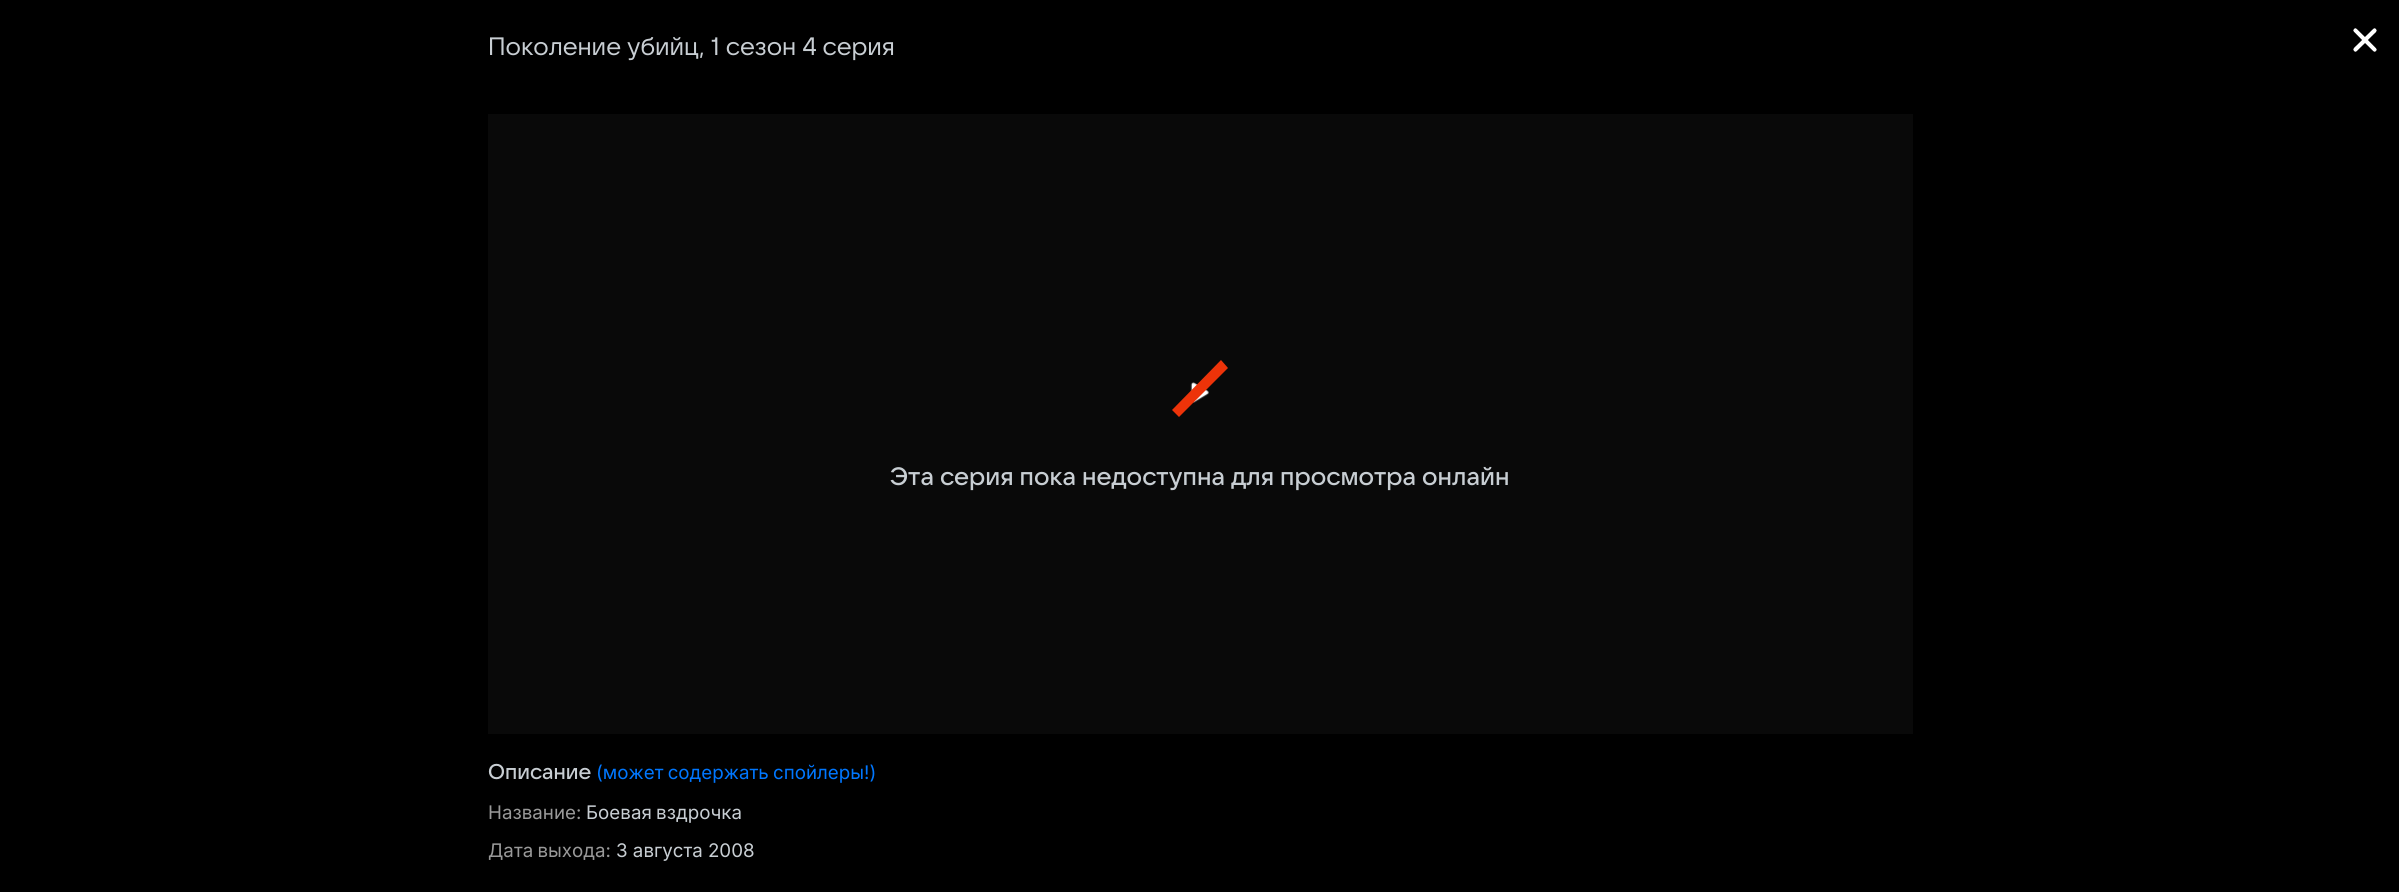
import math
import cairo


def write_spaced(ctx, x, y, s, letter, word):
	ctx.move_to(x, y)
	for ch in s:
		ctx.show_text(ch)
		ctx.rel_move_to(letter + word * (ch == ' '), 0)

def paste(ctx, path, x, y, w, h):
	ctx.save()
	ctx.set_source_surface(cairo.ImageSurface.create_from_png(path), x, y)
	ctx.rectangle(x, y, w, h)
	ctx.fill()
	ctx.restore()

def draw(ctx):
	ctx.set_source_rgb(0, 0, 0)
	ctx.paint()
	ctx.select_font_face('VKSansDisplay')
	ctx.set_font_size(25)
	ctx.set_source_rgb(0.784, 0.808, 0.827)
	ctx.move_to(488, 55)
	ctx.show_text('Поколение убийц, 1 сезон 4 серия')
	ctx.set_source_rgb(0.039, 0.039, 0.039)
	ctx.rectangle(488, 114, 1425, 620)
	ctx.fill()
	paste(ctx, 'media/1.png', 1190, 382, 19, 21)
	ctx.set_source_rgb(0.929, 0.2, 0.039)
	ctx.new_path()
	ctx.move_to(1172, 410)
	ctx.line_to(1221, 360)
	ctx.line_to(1228, 368)
	ctx.line_to(1179, 417)
	ctx.close_path()
	ctx.fill()
	ctx.select_font_face('VKSansDisplay Medium')
	ctx.set_source_rgb(0.784, 0.808, 0.827)
	ctx.move_to(890, 485)
	ctx.show_text('Эта серия пока недоступна для просмотра онлайн')
	ctx.set_font_size(21.25)
	ctx.move_to(488, 779)
	ctx.show_text('Описание')
	ctx.select_font_face('Inter')
	ctx.set_font_size(18.75)
	ctx.set_source_rgb(0, 0.467, 1)
	write_spaced(ctx, 596, 779, '(может содержать спойлеры!)', 0, -1)
	ctx.set_source_rgb(0.6, 0.6, 0.6)
	ctx.move_to(488, 819)
	ctx.show_text('Название:')
	ctx.set_source_rgb(0.784, 0.808, 0.827)
	write_spaced(ctx, 586, 819, 'Боевая вздрочка', 0, -1)
	ctx.set_source_rgb(0.6, 0.6, 0.6)
	write_spaced(ctx, 488, 857, 'Дата выхода:', 0, -1)
	ctx.set_source_rgb(0.784, 0.808, 0.827)
	ctx.move_to(616, 857)
	ctx.show_text('3 августа 2008')
	paste(ctx, 'media/2.png', 2353, 28, 24, 24)


surface = cairo.ImageSurface(cairo.FORMAT_RGB24, 2399, 892)
ctx = cairo.Context(surface)
options = cairo.FontOptions()
options.set_hint_metrics(cairo.HINT_METRICS_OFF)
options.set_hint_style(cairo.HINT_STYLE_NONE)
ctx.set_font_options(options)
ctx.set_miter_limit(4)
draw(ctx)
surface.write_to_png('image.png')
